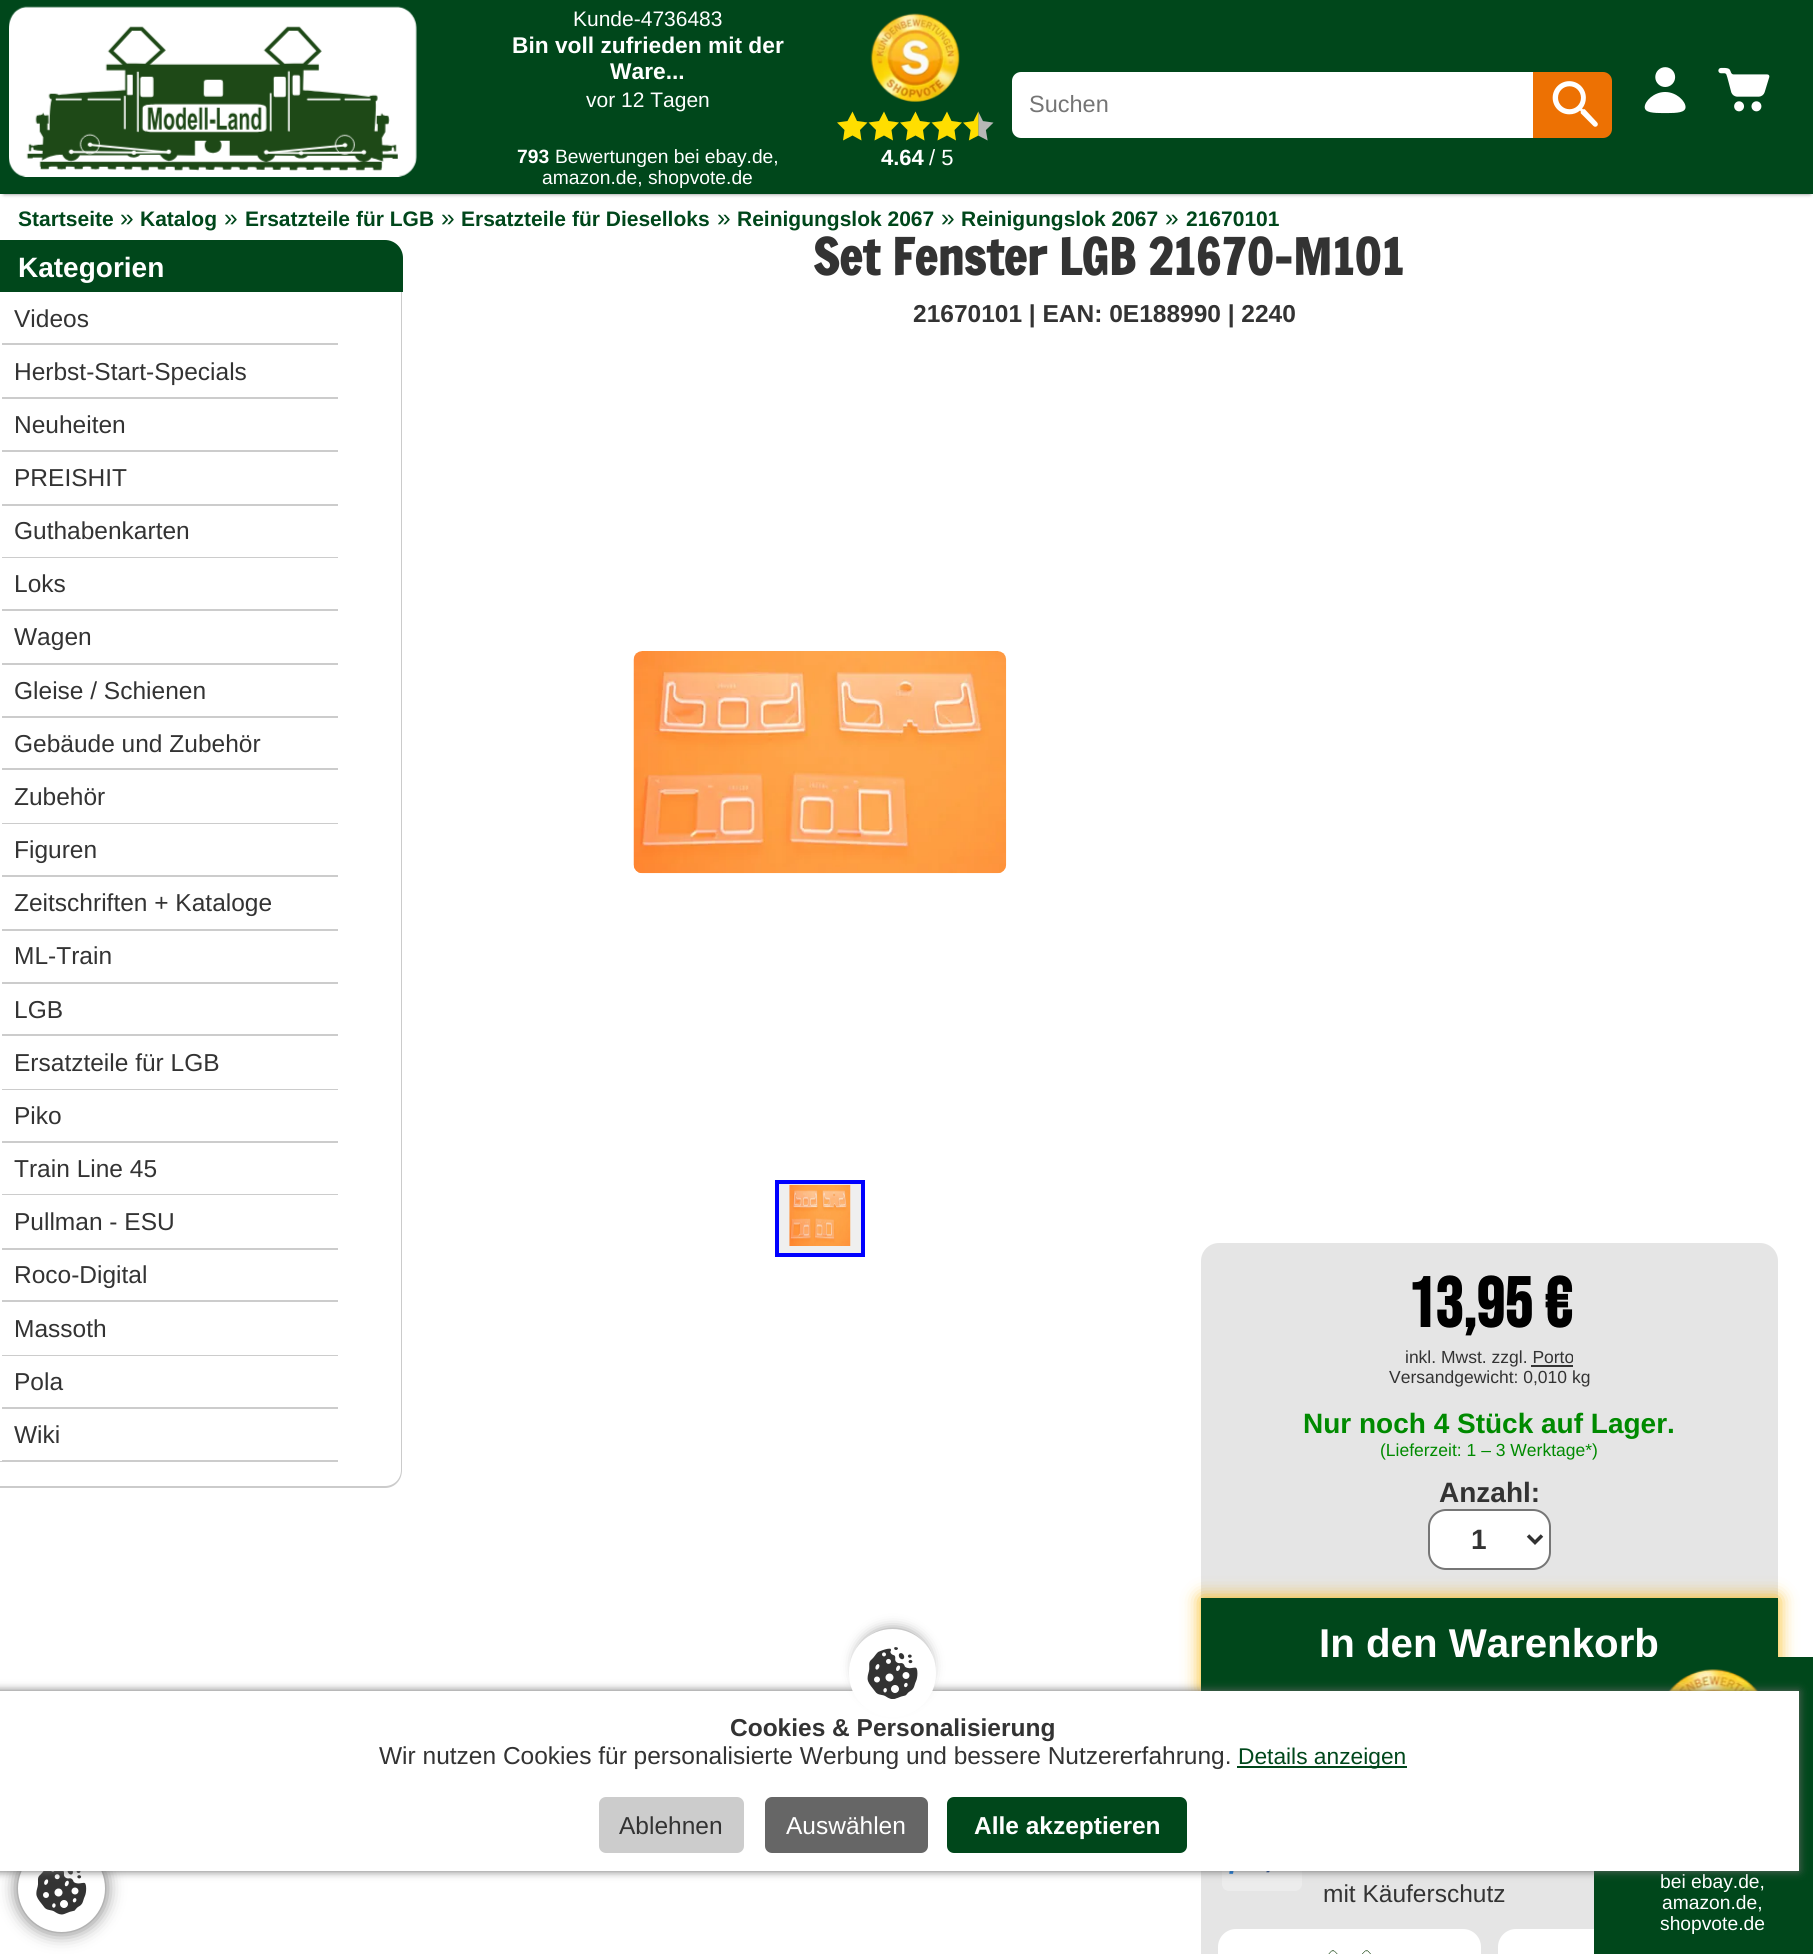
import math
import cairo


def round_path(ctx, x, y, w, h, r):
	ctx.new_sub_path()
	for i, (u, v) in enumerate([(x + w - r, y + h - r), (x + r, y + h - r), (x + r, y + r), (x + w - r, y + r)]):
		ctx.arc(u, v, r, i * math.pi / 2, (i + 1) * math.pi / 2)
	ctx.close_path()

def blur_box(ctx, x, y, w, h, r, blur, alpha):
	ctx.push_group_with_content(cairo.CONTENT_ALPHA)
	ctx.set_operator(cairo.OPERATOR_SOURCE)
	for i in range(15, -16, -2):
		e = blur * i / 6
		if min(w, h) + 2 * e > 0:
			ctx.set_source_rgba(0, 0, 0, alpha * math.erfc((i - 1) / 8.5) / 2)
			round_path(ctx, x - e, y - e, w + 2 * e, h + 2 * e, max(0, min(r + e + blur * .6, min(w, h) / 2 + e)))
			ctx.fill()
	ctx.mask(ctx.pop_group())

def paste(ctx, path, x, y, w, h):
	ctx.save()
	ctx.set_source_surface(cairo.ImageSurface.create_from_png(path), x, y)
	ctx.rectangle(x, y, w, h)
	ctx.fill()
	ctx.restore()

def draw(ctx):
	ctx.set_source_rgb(1, 1, 1)
	ctx.paint()
	ctx.set_source_rgb(0.502, 0.502, 0.502)
	blur_box(ctx, 4, 7, 1806, 187, 0, 2, 1)
	ctx.set_source_rgb(0, 0.278, 0.106)
	ctx.rectangle(0, 0, 1813, 194)
	ctx.fill()
	paste(ctx, 'media/1.png', 9, 6, 408, 171)
	ctx.select_font_face('Liberation Sans')
	ctx.set_font_size(21)
	ctx.set_source_rgb(1, 1, 1)
	ctx.move_to(573, 26)
	ctx.show_text('Kunde-4736483')
	ctx.select_font_face('Liberation Sans', cairo.FONT_SLANT_NORMAL, cairo.FONT_WEIGHT_BOLD)
	ctx.set_font_size(22.75)
	ctx.move_to(512, 53)
	ctx.show_text('Bin voll zufrieden mit der')
	ctx.move_to(610, 79)
	ctx.show_text('Ware...')
	ctx.select_font_face('Liberation Sans')
	ctx.set_font_size(21)
	ctx.move_to(586, 107)
	ctx.show_text('vor 12 Tagen')
	ctx.select_font_face('Liberation Sans', cairo.FONT_SLANT_NORMAL, cairo.FONT_WEIGHT_BOLD)
	ctx.set_font_size(19.25)
	ctx.move_to(517, 163)
	ctx.show_text('793')
	ctx.select_font_face('Liberation Sans')
	ctx.move_to(555, 163)
	ctx.show_text('Bewertungen bei ebay.de,')
	ctx.move_to(542, 184)
	ctx.show_text('amazon.de, shopvote.de')
	ctx.new_path()
	ctx.move_to(1021, 72)
	ctx.line_to(1533, 72)
	ctx.line_to(1533, 138)
	ctx.line_to(1021, 138)
	ctx.curve_to(1016, 138, 1012, 134, 1012, 129)
	ctx.line_to(1012, 81)
	ctx.curve_to(1012, 76, 1016, 72, 1021, 72)
	ctx.close_path()
	ctx.fill()
	ctx.set_font_size(23.5)
	ctx.set_source_rgb(0.459, 0.459, 0.459)
	ctx.move_to(1029, 112)
	ctx.show_text('Suchen')
	ctx.set_source_rgb(0.929, 0.443, 0.012)
	ctx.new_path()
	ctx.move_to(1533, 72)
	ctx.line_to(1603, 72)
	ctx.curve_to(1608, 72, 1612, 76, 1612, 81)
	ctx.line_to(1612, 129)
	ctx.curve_to(1612, 134, 1608, 138, 1603, 138)
	ctx.line_to(1533, 138)
	ctx.close_path()
	ctx.fill()
	paste(ctx, 'media/2.png', 1552, 81, 46, 46)
	paste(ctx, 'media/3.png', 1644, 67, 42, 47)
	paste(ctx, 'media/4.png', 1718, 67, 52, 45)
	paste(ctx, 'media/5.png', 870, 13, 90, 89)
	ctx.set_source_rgb(1, 0.871, 0)
	ctx.new_path()
	ctx.move_to(852.5, 111.5)
	ctx.line_to(857, 121)
	ctx.line_to(867.5, 122.5)
	ctx.line_to(860, 130)
	ctx.line_to(861.5, 140.5)
	ctx.line_to(852.5, 135.5)
	ctx.line_to(843, 140.5)
	ctx.line_to(844.5, 130)
	ctx.line_to(837, 122.5)
	ctx.line_to(847.5, 121)
	ctx.close_path()
	ctx.move_to(884, 111.5)
	ctx.line_to(888.5, 121)
	ctx.line_to(899, 122.5)
	ctx.line_to(891.5, 130)
	ctx.line_to(893, 140.5)
	ctx.line_to(884, 135.5)
	ctx.line_to(874.5, 140.5)
	ctx.line_to(876, 130)
	ctx.line_to(868.5, 122.5)
	ctx.line_to(879, 121)
	ctx.close_path()
	ctx.fill()
	ctx.new_path()
	ctx.move_to(915.5, 111.5)
	ctx.line_to(920, 121)
	ctx.line_to(930.5, 122.5)
	ctx.line_to(923, 130)
	ctx.line_to(924.5, 140.5)
	ctx.line_to(915.5, 135.5)
	ctx.line_to(906, 140.5)
	ctx.line_to(907.5, 130)
	ctx.line_to(900, 122.5)
	ctx.line_to(910.5, 121)
	ctx.close_path()
	ctx.move_to(947, 111.5)
	ctx.line_to(951.5, 121)
	ctx.line_to(962, 122.5)
	ctx.line_to(954.5, 130)
	ctx.line_to(956, 140.5)
	ctx.line_to(947, 135.5)
	ctx.line_to(937.5, 140.5)
	ctx.line_to(939, 130)
	ctx.line_to(931.5, 122.5)
	ctx.line_to(942, 121)
	ctx.close_path()
	ctx.fill()
	paste(ctx, 'media/6.png', 963, 111, 31, 30)
	ctx.select_font_face('Liberation Sans', cairo.FONT_SLANT_NORMAL, cairo.FONT_WEIGHT_BOLD)
	ctx.set_font_size(22)
	ctx.set_source_rgb(1, 1, 1)
	ctx.move_to(881, 165)
	ctx.show_text('4.64')
	ctx.select_font_face('Liberation Sans')
	ctx.move_to(929, 165)
	ctx.show_text('/ 5')
	ctx.select_font_face('Liberation Sans', cairo.FONT_SLANT_NORMAL, cairo.FONT_WEIGHT_BOLD)
	ctx.set_font_size(21)
	ctx.set_source_rgb(0, 0.278, 0.106)
	ctx.move_to(18, 226)
	ctx.show_text('Startseite')
	ctx.select_font_face('Liberation Sans')
	ctx.set_font_size(24.5)
	ctx.move_to(120, 226)
	ctx.show_text('»')
	ctx.select_font_face('Liberation Sans', cairo.FONT_SLANT_NORMAL, cairo.FONT_WEIGHT_BOLD)
	ctx.set_font_size(21)
	ctx.move_to(140, 226)
	ctx.show_text('Katalog')
	ctx.select_font_face('Liberation Sans')
	ctx.set_font_size(24.5)
	ctx.move_to(224, 226)
	ctx.show_text('»')
	ctx.select_font_face('Liberation Sans', cairo.FONT_SLANT_NORMAL, cairo.FONT_WEIGHT_BOLD)
	ctx.set_font_size(21)
	ctx.move_to(245, 226)
	ctx.show_text('Ersatzteile für LGB')
	ctx.select_font_face('Liberation Sans')
	ctx.set_font_size(24.5)
	ctx.move_to(441, 226)
	ctx.show_text('»')
	ctx.select_font_face('Liberation Sans', cairo.FONT_SLANT_NORMAL, cairo.FONT_WEIGHT_BOLD)
	ctx.set_font_size(21)
	ctx.move_to(461, 226)
	ctx.show_text('Ersatzteile für Dieselloks')
	ctx.select_font_face('Liberation Sans')
	ctx.set_font_size(24.5)
	ctx.move_to(717, 226)
	ctx.show_text('»')
	ctx.select_font_face('Liberation Sans', cairo.FONT_SLANT_NORMAL, cairo.FONT_WEIGHT_BOLD)
	ctx.set_font_size(21)
	ctx.move_to(737, 226)
	ctx.show_text('Reinigungslok 2067')
	ctx.select_font_face('Liberation Sans')
	ctx.set_font_size(24.5)
	ctx.move_to(941, 226)
	ctx.show_text('»')
	ctx.select_font_face('Liberation Sans', cairo.FONT_SLANT_NORMAL, cairo.FONT_WEIGHT_BOLD)
	ctx.set_font_size(21)
	ctx.move_to(961, 226)
	ctx.show_text('Reinigungslok 2067')
	ctx.select_font_face('Liberation Sans')
	ctx.set_font_size(24.5)
	ctx.move_to(1165, 226)
	ctx.show_text('»')
	ctx.select_font_face('Liberation Sans', cairo.FONT_SLANT_NORMAL, cairo.FONT_WEIGHT_BOLD)
	ctx.set_font_size(21)
	ctx.move_to(1186, 226)
	ctx.show_text('21670101')
	ctx.new_path()
	ctx.move_to(0, 240)
	ctx.line_to(385, 240)
	ctx.curve_to(395, 240, 403, 248, 403, 258)
	ctx.line_to(403, 292)
	ctx.line_to(0, 292)
	ctx.close_path()
	ctx.fill()
	ctx.set_font_size(28)
	ctx.set_source_rgb(1, 1, 1)
	ctx.move_to(18, 277)
	ctx.show_text('Kategorien')
	ctx.set_source_rgb(0.796, 0.796, 0.796)
	ctx.set_fill_rule(cairo.FILL_RULE_EVEN_ODD)
	ctx.new_path()
	ctx.move_to(0, 292)
	ctx.line_to(402, 292)
	ctx.line_to(402, 1470)
	ctx.curve_to(402, 1480, 395, 1488, 385, 1488)
	ctx.line_to(0, 1488)
	ctx.close_path()
	ctx.move_to(0, 292)
	ctx.line_to(401, 292)
	ctx.line_to(401, 1470)
	ctx.curve_to(401, 1479, 394, 1486, 385, 1486)
	ctx.line_to(0, 1486)
	ctx.close_path()
	ctx.fill()
	ctx.set_source_rgb(0.8, 0.8, 0.8)
	ctx.rectangle(0, 343, 338, 2)
	ctx.fill()
	ctx.set_source_rgb(1, 1, 1)
	ctx.rectangle(0, 343, 2, 2)
	ctx.fill()
	ctx.select_font_face('Liberation Sans')
	ctx.set_font_size(24.5)
	ctx.set_source_rgb(0.2, 0.2, 0.2)
	ctx.move_to(14, 327)
	ctx.show_text('Videos')
	ctx.set_source_rgb(0.8, 0.8, 0.8)
	ctx.rectangle(0, 397, 338, 2)
	ctx.fill()
	ctx.set_source_rgb(1, 1, 1)
	ctx.rectangle(0, 397, 2, 2)
	ctx.fill()
	ctx.set_source_rgb(0.2, 0.2, 0.2)
	ctx.move_to(14, 380)
	ctx.show_text('Herbst-Start-Specials')
	ctx.set_source_rgb(0.8, 0.8, 0.8)
	ctx.rectangle(0, 450, 338, 2)
	ctx.fill()
	ctx.set_source_rgb(1, 1, 1)
	ctx.rectangle(0, 450, 2, 2)
	ctx.fill()
	ctx.set_source_rgb(0.2, 0.2, 0.2)
	ctx.move_to(14, 433)
	ctx.show_text('Neuheiten')
	ctx.set_source_rgb(0.8, 0.8, 0.8)
	ctx.rectangle(0, 504, 338, 2)
	ctx.fill()
	ctx.set_source_rgb(1, 1, 1)
	ctx.rectangle(0, 504, 2, 2)
	ctx.fill()
	ctx.set_source_rgb(0.2, 0.2, 0.2)
	ctx.move_to(14, 486)
	ctx.show_text('PREISHIT')
	ctx.set_source_rgb(0.8, 0.8, 0.8)
	ctx.rectangle(0, 557, 338, 1)
	ctx.fill()
	ctx.set_source_rgb(1, 1, 1)
	ctx.rectangle(0, 557, 2, 1)
	ctx.fill()
	ctx.set_source_rgb(0.2, 0.2, 0.2)
	ctx.move_to(14, 539)
	ctx.show_text('Guthabenkarten')
	ctx.set_source_rgb(0.8, 0.8, 0.8)
	ctx.rectangle(0, 609, 338, 2)
	ctx.fill()
	ctx.set_source_rgb(1, 1, 1)
	ctx.rectangle(0, 609, 2, 2)
	ctx.fill()
	ctx.set_source_rgb(0.2, 0.2, 0.2)
	ctx.move_to(14, 592)
	ctx.show_text('Loks')
	ctx.set_source_rgb(0.8, 0.8, 0.8)
	ctx.rectangle(0, 663, 338, 2)
	ctx.fill()
	ctx.set_source_rgb(1, 1, 1)
	ctx.rectangle(0, 663, 2, 2)
	ctx.fill()
	ctx.set_source_rgb(0.2, 0.2, 0.2)
	ctx.move_to(14, 645)
	ctx.show_text('Wagen')
	ctx.set_source_rgb(0.8, 0.8, 0.8)
	ctx.rectangle(0, 716, 338, 2)
	ctx.fill()
	ctx.set_source_rgb(1, 1, 1)
	ctx.rectangle(0, 716, 2, 2)
	ctx.fill()
	ctx.set_source_rgb(0.2, 0.2, 0.2)
	ctx.move_to(14, 699)
	ctx.show_text('Gleise / Schienen')
	ctx.set_source_rgb(0.8, 0.8, 0.8)
	ctx.rectangle(0, 768, 338, 2)
	ctx.fill()
	ctx.set_source_rgb(1, 1, 1)
	ctx.rectangle(0, 768, 2, 2)
	ctx.fill()
	ctx.set_source_rgb(0.2, 0.2, 0.2)
	ctx.move_to(14, 752)
	ctx.show_text('Gebäude und Zubehör')
	ctx.set_source_rgb(0.8, 0.8, 0.8)
	ctx.rectangle(0, 823, 338, 1)
	ctx.fill()
	ctx.set_source_rgb(1, 1, 1)
	ctx.rectangle(0, 823, 2, 1)
	ctx.fill()
	ctx.set_source_rgb(0.2, 0.2, 0.2)
	ctx.move_to(14, 805)
	ctx.show_text('Zubehör')
	ctx.set_source_rgb(0.8, 0.8, 0.8)
	ctx.rectangle(0, 875, 338, 2)
	ctx.fill()
	ctx.set_source_rgb(1, 1, 1)
	ctx.rectangle(0, 875, 2, 2)
	ctx.fill()
	ctx.set_source_rgb(0.2, 0.2, 0.2)
	ctx.move_to(14, 858)
	ctx.show_text('Figuren')
	ctx.set_source_rgb(0.8, 0.8, 0.8)
	ctx.rectangle(0, 929, 338, 2)
	ctx.fill()
	ctx.set_source_rgb(1, 1, 1)
	ctx.rectangle(0, 929, 2, 2)
	ctx.fill()
	ctx.set_source_rgb(0.2, 0.2, 0.2)
	ctx.move_to(14, 911)
	ctx.show_text('Zeitschriften + Kataloge')
	ctx.set_source_rgb(0.8, 0.8, 0.8)
	ctx.rectangle(0, 982, 338, 2)
	ctx.fill()
	ctx.set_source_rgb(1, 1, 1)
	ctx.rectangle(0, 982, 2, 2)
	ctx.fill()
	ctx.set_source_rgb(0.2, 0.2, 0.2)
	ctx.move_to(14, 964)
	ctx.show_text('ML-Train')
	ctx.set_source_rgb(0.8, 0.8, 0.8)
	ctx.rectangle(0, 1034, 338, 2)
	ctx.fill()
	ctx.set_source_rgb(1, 1, 1)
	ctx.rectangle(0, 1034, 2, 2)
	ctx.fill()
	ctx.set_source_rgb(0.2, 0.2, 0.2)
	ctx.move_to(14, 1018)
	ctx.show_text('LGB')
	ctx.set_source_rgb(0.8, 0.8, 0.8)
	ctx.rectangle(0, 1089, 338, 1)
	ctx.fill()
	ctx.set_source_rgb(1, 1, 1)
	ctx.rectangle(0, 1089, 2, 1)
	ctx.fill()
	ctx.set_source_rgb(0.2, 0.2, 0.2)
	ctx.move_to(14, 1071)
	ctx.show_text('Ersatzteile für LGB')
	ctx.set_source_rgb(0.8, 0.8, 0.8)
	ctx.rectangle(0, 1141, 338, 2)
	ctx.fill()
	ctx.set_source_rgb(1, 1, 1)
	ctx.rectangle(0, 1141, 2, 2)
	ctx.fill()
	ctx.set_source_rgb(0.2, 0.2, 0.2)
	ctx.move_to(14, 1124)
	ctx.show_text('Piko')
	ctx.set_source_rgb(0.8, 0.8, 0.8)
	ctx.rectangle(0, 1194, 338, 1)
	ctx.fill()
	ctx.set_source_rgb(1, 1, 1)
	ctx.rectangle(0, 1194, 2, 1)
	ctx.fill()
	ctx.set_source_rgb(0.2, 0.2, 0.2)
	ctx.move_to(14, 1177)
	ctx.show_text('Train Line 45')
	ctx.set_source_rgb(0.8, 0.8, 0.8)
	ctx.rectangle(0, 1248, 338, 2)
	ctx.fill()
	ctx.set_source_rgb(1, 1, 1)
	ctx.rectangle(0, 1248, 2, 2)
	ctx.fill()
	ctx.set_source_rgb(0.2, 0.2, 0.2)
	ctx.move_to(14, 1230)
	ctx.show_text('Pullman - ESU')
	ctx.set_source_rgb(0.8, 0.8, 0.8)
	ctx.rectangle(0, 1300, 338, 2)
	ctx.fill()
	ctx.set_source_rgb(1, 1, 1)
	ctx.rectangle(0, 1300, 2, 2)
	ctx.fill()
	ctx.set_source_rgb(0.2, 0.2, 0.2)
	ctx.move_to(14, 1283)
	ctx.show_text('Roco-Digital')
	ctx.set_source_rgb(0.8, 0.8, 0.8)
	ctx.rectangle(0, 1355, 338, 1)
	ctx.fill()
	ctx.set_source_rgb(1, 1, 1)
	ctx.rectangle(0, 1355, 2, 1)
	ctx.fill()
	ctx.set_source_rgb(0.2, 0.2, 0.2)
	ctx.move_to(14, 1337)
	ctx.show_text('Massoth')
	ctx.set_source_rgb(0.8, 0.8, 0.8)
	ctx.rectangle(0, 1407, 338, 2)
	ctx.fill()
	ctx.set_source_rgb(1, 1, 1)
	ctx.rectangle(0, 1407, 2, 2)
	ctx.fill()
	ctx.set_source_rgb(0.2, 0.2, 0.2)
	ctx.move_to(14, 1390)
	ctx.show_text('Pola')
	ctx.set_source_rgb(0.8, 0.8, 0.8)
	ctx.rectangle(0, 1460, 338, 2)
	ctx.fill()
	ctx.set_source_rgb(1, 1, 1)
	ctx.rectangle(0, 1460, 2, 1)
	ctx.fill()
	ctx.set_source_rgb(0.2, 0.2, 0.2)
	ctx.move_to(14, 1443)
	ctx.show_text('Wiki')
	ctx.select_font_face('Francois One', cairo.FONT_SLANT_NORMAL, cairo.FONT_WEIGHT_BOLD)
	ctx.set_font_size(49)
	ctx.move_to(813, 275)
	ctx.show_text('Set Fenster LGB 21670-M101')
	ctx.select_font_face('Liberation Sans', cairo.FONT_SLANT_NORMAL, cairo.FONT_WEIGHT_BOLD)
	ctx.set_font_size(24.5)
	ctx.move_to(913, 322)
	ctx.show_text('21670101 | EAN: 0E188990 | 2240')
	paste(ctx, 'media/7.png', 633, 651, 374, 223)
	ctx.set_source_rgb(0.937, 0.937, 0.937)
	ctx.rectangle(777, 1182, 86, 73)
	ctx.fill_preserve()
	ctx.set_source_rgb(0, 0, 1)
	ctx.set_line_width(4)
	ctx.stroke()
	paste(ctx, 'media/8.png', 789, 1184, 62, 62)
	ctx.set_source_rgb(0.898, 0.898, 0.898)
	ctx.new_path()
	ctx.move_to(1219, 1243)
	ctx.line_to(1760, 1243)
	ctx.curve_to(1770, 1243, 1778, 1251, 1778, 1261)
	ctx.line_to(1778, 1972)
	ctx.line_to(1201, 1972)
	ctx.line_to(1201, 1261)
	ctx.curve_to(1201, 1251, 1209, 1243, 1219, 1243)
	ctx.close_path()
	ctx.fill()
	ctx.select_font_face('Bebas Neue', cairo.FONT_SLANT_NORMAL, cairo.FONT_WEIGHT_BOLD)
	ctx.set_font_size(70)
	ctx.set_source_rgb(0, 0, 0)
	ctx.move_to(1407, 1327)
	ctx.show_text('13,95')
	ctx.move_to(1544, 1327)
	ctx.show_text('€')
	ctx.select_font_face('Liberation Sans')
	ctx.set_font_size(17.5)
	ctx.set_source_rgb(0.2, 0.2, 0.2)
	ctx.move_to(1405, 1363)
	ctx.show_text('inkl. Mwst. zzgl. Porto')
	ctx.rectangle(1531, 1365, 42, 2)
	ctx.fill()
	ctx.move_to(1389, 1383)
	ctx.show_text('Versandgewicht: 0,010 kg')
	ctx.select_font_face('Liberation Sans', cairo.FONT_SLANT_NORMAL, cairo.FONT_WEIGHT_BOLD)
	ctx.set_font_size(28)
	ctx.set_source_rgb(0, 0.541, 0)
	ctx.move_to(1303, 1433)
	ctx.show_text('Nur noch 4 Stück auf Lager.')
	ctx.select_font_face('Liberation Sans')
	ctx.set_font_size(17.5)
	ctx.move_to(1380, 1456)
	ctx.show_text('(Lieferzeit: 1 – 3 Werktage*)')
	ctx.select_font_face('Liberation Sans', cairo.FONT_SLANT_NORMAL, cairo.FONT_WEIGHT_BOLD)
	ctx.set_font_size(28)
	ctx.set_source_rgb(0.2, 0.2, 0.2)
	ctx.move_to(1439, 1502)
	ctx.show_text('Anzahl:')
	ctx.set_source_rgb(1, 1, 1)
	round_path(ctx, 1429, 1510, 121, 59, 17)
	ctx.fill_preserve()
	ctx.set_source_rgb(0.463, 0.463, 0.463)
	ctx.set_line_width(2)
	ctx.stroke()
	ctx.new_path()
	ctx.move_to(1528, 1535.5)
	ctx.line_to(1535, 1542.5)
	ctx.line_to(1542, 1535.5)
	ctx.set_source_rgb(0.2, 0.2, 0.2)
	ctx.set_line_width(3.5)
	ctx.stroke()
	ctx.move_to(1471, 1549)
	ctx.show_text('1')
	ctx.set_source_rgb(0.98, 0.71, 0.016)
	blur_box(ctx, 1201, 1598, 577, 93, 0, 9, 1)
	ctx.set_source_rgb(0, 0.278, 0.106)
	ctx.rectangle(1201, 1598, 577, 93)
	ctx.fill()
	ctx.set_font_size(40.25)
	ctx.set_source_rgb(1, 1, 1)
	ctx.move_to(1319, 1657)
	ctx.show_text('In den Warenkorb')
	paste(ctx, 'media/9.png', 1222, 1871, 80, 20)
	ctx.select_font_face('Liberation Sans')
	ctx.set_font_size(24.5)
	ctx.set_source_rgb(0.2, 0.2, 0.2)
	ctx.move_to(1323, 1902)
	ctx.show_text('mit Käuferschutz')
	ctx.set_source_rgb(1, 1, 1)
	round_path(ctx, 1218, 1929, 263, 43, 18)
	ctx.fill()
	paste(ctx, 'media/10.png', 1328, 1950, 43, 4)
	round_path(ctx, 1498, 1929, 263, 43, 18)
	ctx.fill()
	ctx.set_source_rgb(0, 0.278, 0.106)
	ctx.new_path()
	ctx.move_to(1612, 1657)
	ctx.line_to(1813, 1657)
	ctx.line_to(1813, 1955)
	ctx.line_to(1594, 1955)
	ctx.line_to(1594, 1675)
	ctx.curve_to(1594, 1665, 1602, 1657, 1612, 1657)
	ctx.close_path()
	ctx.fill()
	paste(ctx, 'media/11.png', 1668, 1669, 91, 22)
	ctx.set_font_size(19.25)
	ctx.set_source_rgb(1, 1, 1)
	for x, y, s in [
		(1660, 1888, 'bei ebay.de,'),
		(1662, 1909, 'amazon.de,'),
		(1660, 1930, 'shopvote.de'),
	]:
		ctx.move_to(x, y)
		ctx.show_text(s)
	ctx.set_source_rgb(0.4, 0.4, 0.4)
	blur_box(ctx, 18, 1845, 87, 87, 43.5, 9, 1)
	ctx.set_source_rgb(1, 1, 1)
	ctx.arc(61.5, 1888.5, 43.5, 0, 2 * math.pi)
	ctx.fill()
	paste(ctx, 'media/13.png', 36, 1871, 51, 44)
	ctx.set_source_rgb(0.4, 0.4, 0.4)
	blur_box(ctx, -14, 1691, 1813, 180, 0, 4.5, 1)
	ctx.set_source_rgb(1, 1, 1)
	ctx.rectangle(0, 1691, 1799, 180)
	ctx.fill()
	ctx.set_source_rgb(0.4, 0.4, 0.4)
	blur_box(ctx, 858, 1631, 70, 70, 35, 7, 1)
	ctx.set_source_rgb(1, 1, 1)
	round_path(ctx, 849, 1629, 87, 88, 43.5)
	ctx.fill()
	paste(ctx, 'media/12.png', 867, 1647, 51, 52)
	ctx.select_font_face('Liberation Sans', cairo.FONT_SLANT_NORMAL, cairo.FONT_WEIGHT_BOLD)
	ctx.set_font_size(24.5)
	ctx.set_source_rgb(0.2, 0.2, 0.2)
	ctx.move_to(730, 1736)
	ctx.show_text('Cookies & Personalisierung')
	ctx.select_font_face('Liberation Sans')
	ctx.move_to(379, 1764)
	ctx.show_text('Wir nutzen Cookies für personalisierte Werbung und bessere Nutzererfahrung.')
	ctx.set_source_rgb(0, 0.278, 0.106)
	ctx.rectangle(1237, 1766, 170, 2)
	ctx.fill()
	ctx.set_font_size(22.75)
	ctx.move_to(1238, 1764)
	ctx.show_text('Details anzeigen')
	ctx.set_source_rgb(0.8, 0.8, 0.8)
	round_path(ctx, 599, 1797, 145, 56, 7)
	ctx.fill()
	ctx.set_font_size(24.5)
	ctx.set_source_rgb(0.2, 0.2, 0.2)
	ctx.move_to(619, 1834)
	ctx.show_text('Ablehnen')
	ctx.set_source_rgb(0.4, 0.4, 0.4)
	round_path(ctx, 765, 1797, 163, 56, 7)
	ctx.fill()
	ctx.set_source_rgb(1, 1, 1)
	ctx.move_to(786, 1834)
	ctx.show_text('Auswählen')
	ctx.set_source_rgb(0, 0.278, 0.106)
	round_path(ctx, 947, 1797, 240, 56, 7)
	ctx.fill()
	ctx.select_font_face('Liberation Sans', cairo.FONT_SLANT_NORMAL, cairo.FONT_WEIGHT_BOLD)
	ctx.set_source_rgb(1, 1, 1)
	ctx.move_to(974, 1834)
	ctx.show_text('Alle akzeptieren')


surface = cairo.ImageSurface(cairo.FORMAT_RGB24, 1813, 1954)
ctx = cairo.Context(surface)
options = cairo.FontOptions()
options.set_hint_metrics(cairo.HINT_METRICS_OFF)
options.set_hint_style(cairo.HINT_STYLE_NONE)
ctx.set_font_options(options)
ctx.set_miter_limit(4)
draw(ctx)
surface.write_to_png('image.png')
